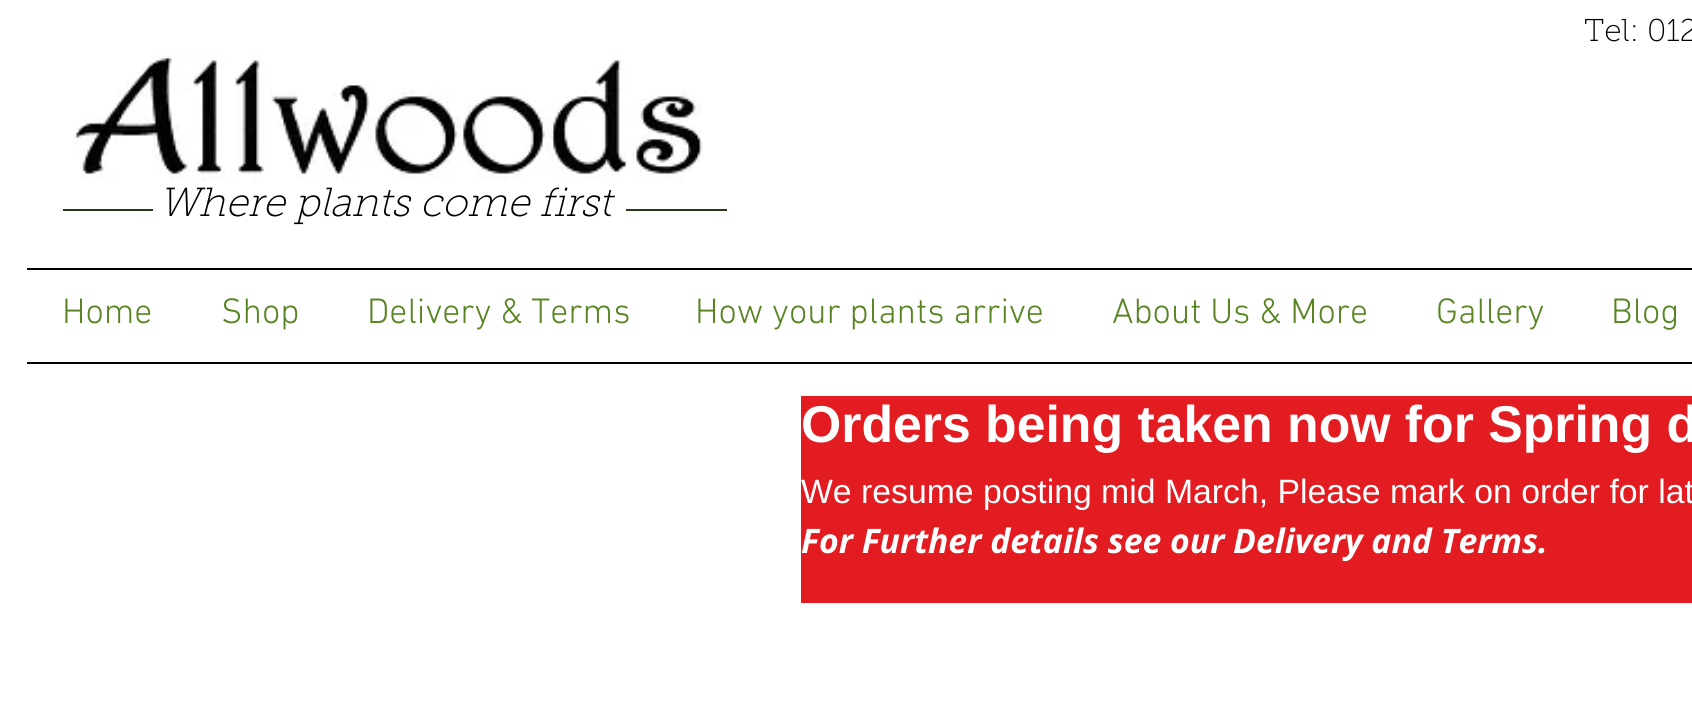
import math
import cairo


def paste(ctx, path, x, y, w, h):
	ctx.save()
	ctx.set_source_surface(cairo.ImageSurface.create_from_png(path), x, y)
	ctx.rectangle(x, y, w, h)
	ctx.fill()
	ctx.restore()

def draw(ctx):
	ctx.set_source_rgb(1, 1, 1)
	ctx.paint()
	ctx.select_font_face('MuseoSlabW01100 Thin')
	ctx.set_font_size(31.5)
	ctx.set_source_rgb(0, 0, 0)
	ctx.move_to(1584, 41)
	ctx.show_text('Tel: 012')
	paste(ctx, 'media/1.png', 72, 54, 631, 127)
	ctx.set_source_rgb(0.145, 0.227, 0.09)
	ctx.rectangle(63, 209, 90, 2)
	ctx.fill()
	ctx.select_font_face('MuseoSlabW01100 Thin', cairo.FONT_SLANT_ITALIC)
	ctx.set_font_size(40.5)
	ctx.set_source_rgb(0, 0, 0)
	ctx.move_to(159, 216)
	ctx.show_text('Where plants come first')
	ctx.set_source_rgb(0.145, 0.227, 0.09)
	ctx.rectangle(626, 209, 101, 2)
	ctx.fill()
	ctx.set_source_rgb(0, 0, 0)
	ctx.rectangle(27, 268, 1665, 2)
	ctx.rectangle(27, 362, 1665, 2)
	ctx.fill()
	ctx.select_font_face('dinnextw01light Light')
	ctx.set_font_size(36)
	ctx.set_source_rgb(0.345, 0.522, 0.133)
	for x, y, s in [
		(62, 323, 'Home'),
		(221, 323, 'Shop'),
		(367, 323, 'Delivery & Terms'),
		(695, 323, 'How your plants arrive'),
		(1112, 323, 'About Us & More'),
		(1436, 323, 'Gallery'),
		(1611, 323, 'Blog'),
	]:
		ctx.move_to(x, y)
		ctx.show_text(s)
	ctx.set_source_rgb(0.886, 0.11, 0.129)
	ctx.rectangle(801, 396, 891, 207)
	ctx.fill()
	ctx.select_font_face('Liberation Sans', cairo.FONT_SLANT_NORMAL, cairo.FONT_WEIGHT_BOLD)
	ctx.set_font_size(51.75)
	ctx.set_source_rgb(1, 1, 1)
	ctx.move_to(801, 442)
	ctx.show_text('Orders being taken now for Spring d')
	ctx.select_font_face('Liberation Sans')
	ctx.set_font_size(33.75)
	ctx.move_to(801, 503)
	ctx.show_text('We resume posting mid March, Please mark on order for lat')
	ctx.select_font_face('Open Sans', cairo.FONT_SLANT_ITALIC, cairo.FONT_WEIGHT_BOLD)
	ctx.move_to(801, 553)
	ctx.show_text('For Further details see our Delivery and Terms.')


surface = cairo.ImageSurface(cairo.FORMAT_RGB24, 1692, 712)
ctx = cairo.Context(surface)
options = cairo.FontOptions()
options.set_hint_metrics(cairo.HINT_METRICS_OFF)
options.set_hint_style(cairo.HINT_STYLE_NONE)
ctx.set_font_options(options)
ctx.set_miter_limit(4)
draw(ctx)
surface.write_to_png('image.png')
